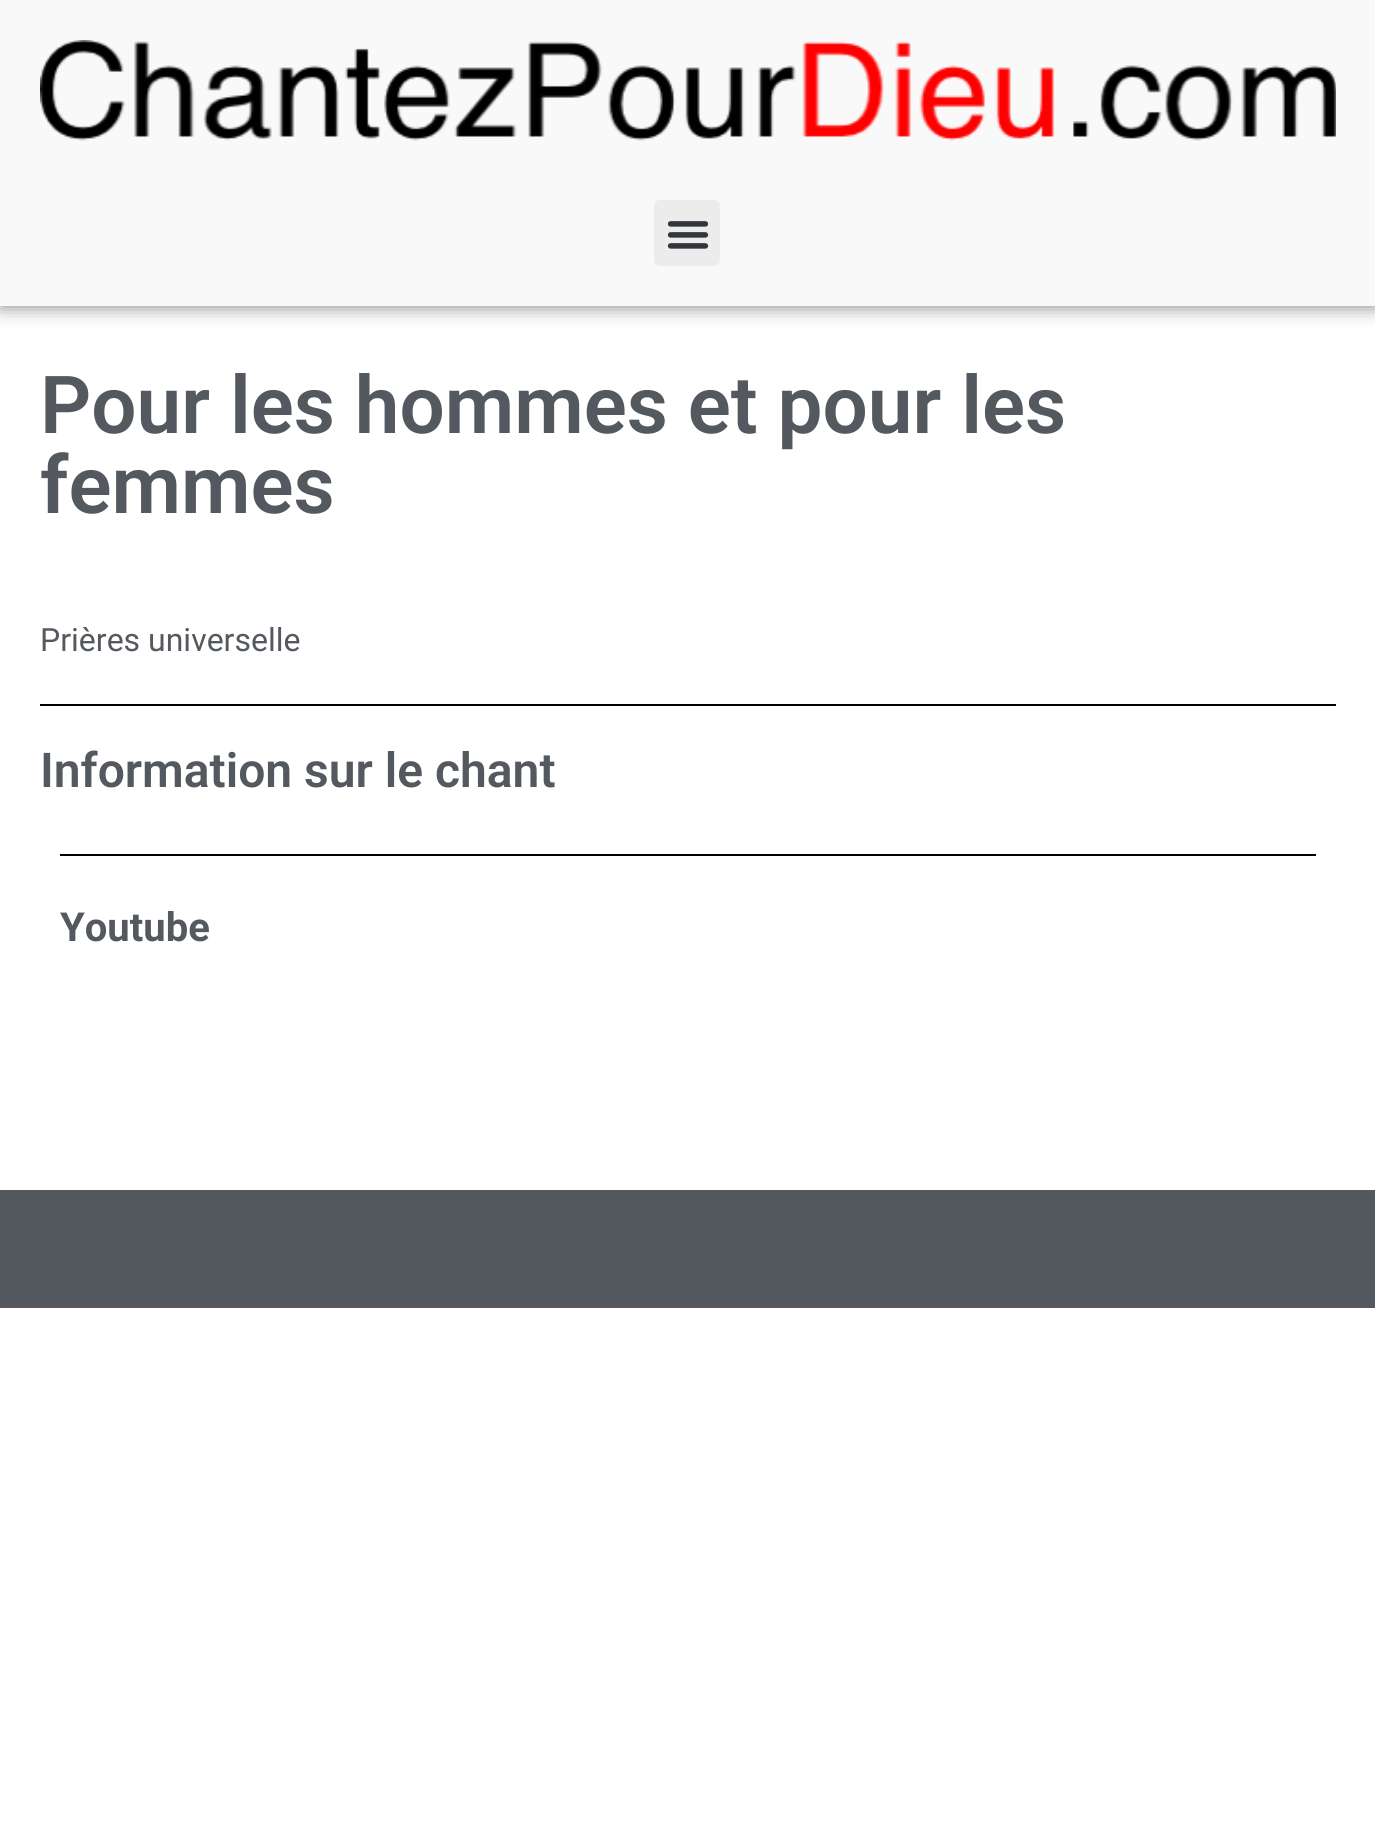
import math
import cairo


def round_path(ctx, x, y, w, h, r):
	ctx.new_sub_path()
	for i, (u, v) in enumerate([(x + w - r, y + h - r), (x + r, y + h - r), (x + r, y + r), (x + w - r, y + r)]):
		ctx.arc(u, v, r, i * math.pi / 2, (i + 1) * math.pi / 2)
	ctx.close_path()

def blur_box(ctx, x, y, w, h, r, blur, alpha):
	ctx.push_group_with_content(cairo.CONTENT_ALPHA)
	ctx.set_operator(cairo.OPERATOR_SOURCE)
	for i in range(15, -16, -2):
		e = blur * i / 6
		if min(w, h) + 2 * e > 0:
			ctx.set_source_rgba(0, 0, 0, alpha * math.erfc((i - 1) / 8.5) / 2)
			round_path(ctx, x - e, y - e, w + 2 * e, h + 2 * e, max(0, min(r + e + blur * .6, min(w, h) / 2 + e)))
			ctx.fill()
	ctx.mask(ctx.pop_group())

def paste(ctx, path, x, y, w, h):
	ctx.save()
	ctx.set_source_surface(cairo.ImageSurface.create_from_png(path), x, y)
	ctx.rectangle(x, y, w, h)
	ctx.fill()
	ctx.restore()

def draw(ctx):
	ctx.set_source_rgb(1, 1, 1)
	ctx.paint()
	ctx.set_source_rgb(0, 0, 0)
	blur_box(ctx, 0, 0, 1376, 306, 0, 10, 0.5)
	ctx.set_source_rgb(0.973, 0.973, 0.973)
	ctx.rectangle(0, 0, 1375, 306)
	ctx.fill()
	paste(ctx, 'media/1.png', 40, 40, 1296, 101)
	ctx.set_source_rgb(0.925, 0.925, 0.925)
	round_path(ctx, 654, 200, 66, 66, 6)
	ctx.fill()
	paste(ctx, 'media/2.png', 667, 221, 42, 28)
	ctx.select_font_face('Roboto SemiBold')
	ctx.set_font_size(80)
	ctx.set_source_rgb(0.329, 0.349, 0.373)
	ctx.move_to(40, 433)
	ctx.show_text('Pour les hommes et pour les')
	ctx.move_to(40, 513)
	ctx.show_text('femmes')
	ctx.select_font_face('Roboto')
	ctx.set_font_size(32)
	ctx.move_to(40, 651)
	ctx.show_text('Prières universelle')
	ctx.set_source_rgb(0, 0, 0)
	ctx.rectangle(40, 704, 1296, 2)
	ctx.fill()
	ctx.select_font_face('Roboto SemiBold')
	ctx.set_font_size(48)
	ctx.set_source_rgb(0.329, 0.349, 0.373)
	ctx.move_to(40, 787)
	ctx.show_text('Information sur le chant')
	ctx.set_source_rgb(0, 0, 0)
	ctx.rectangle(60, 854, 1256, 2)
	ctx.fill()
	ctx.select_font_face('Roboto', cairo.FONT_SLANT_NORMAL, cairo.FONT_WEIGHT_BOLD)
	ctx.set_font_size(40)
	ctx.set_source_rgb(0.329, 0.349, 0.373)
	ctx.move_to(60, 941)
	ctx.show_text('Youtube')
	ctx.rectangle(0, 1190, 1375, 118)
	ctx.fill()


surface = cairo.ImageSurface(cairo.FORMAT_RGB24, 1375, 1824)
ctx = cairo.Context(surface)
options = cairo.FontOptions()
options.set_hint_metrics(cairo.HINT_METRICS_OFF)
options.set_hint_style(cairo.HINT_STYLE_NONE)
ctx.set_font_options(options)
ctx.set_miter_limit(4)
draw(ctx)
surface.write_to_png('image.png')
